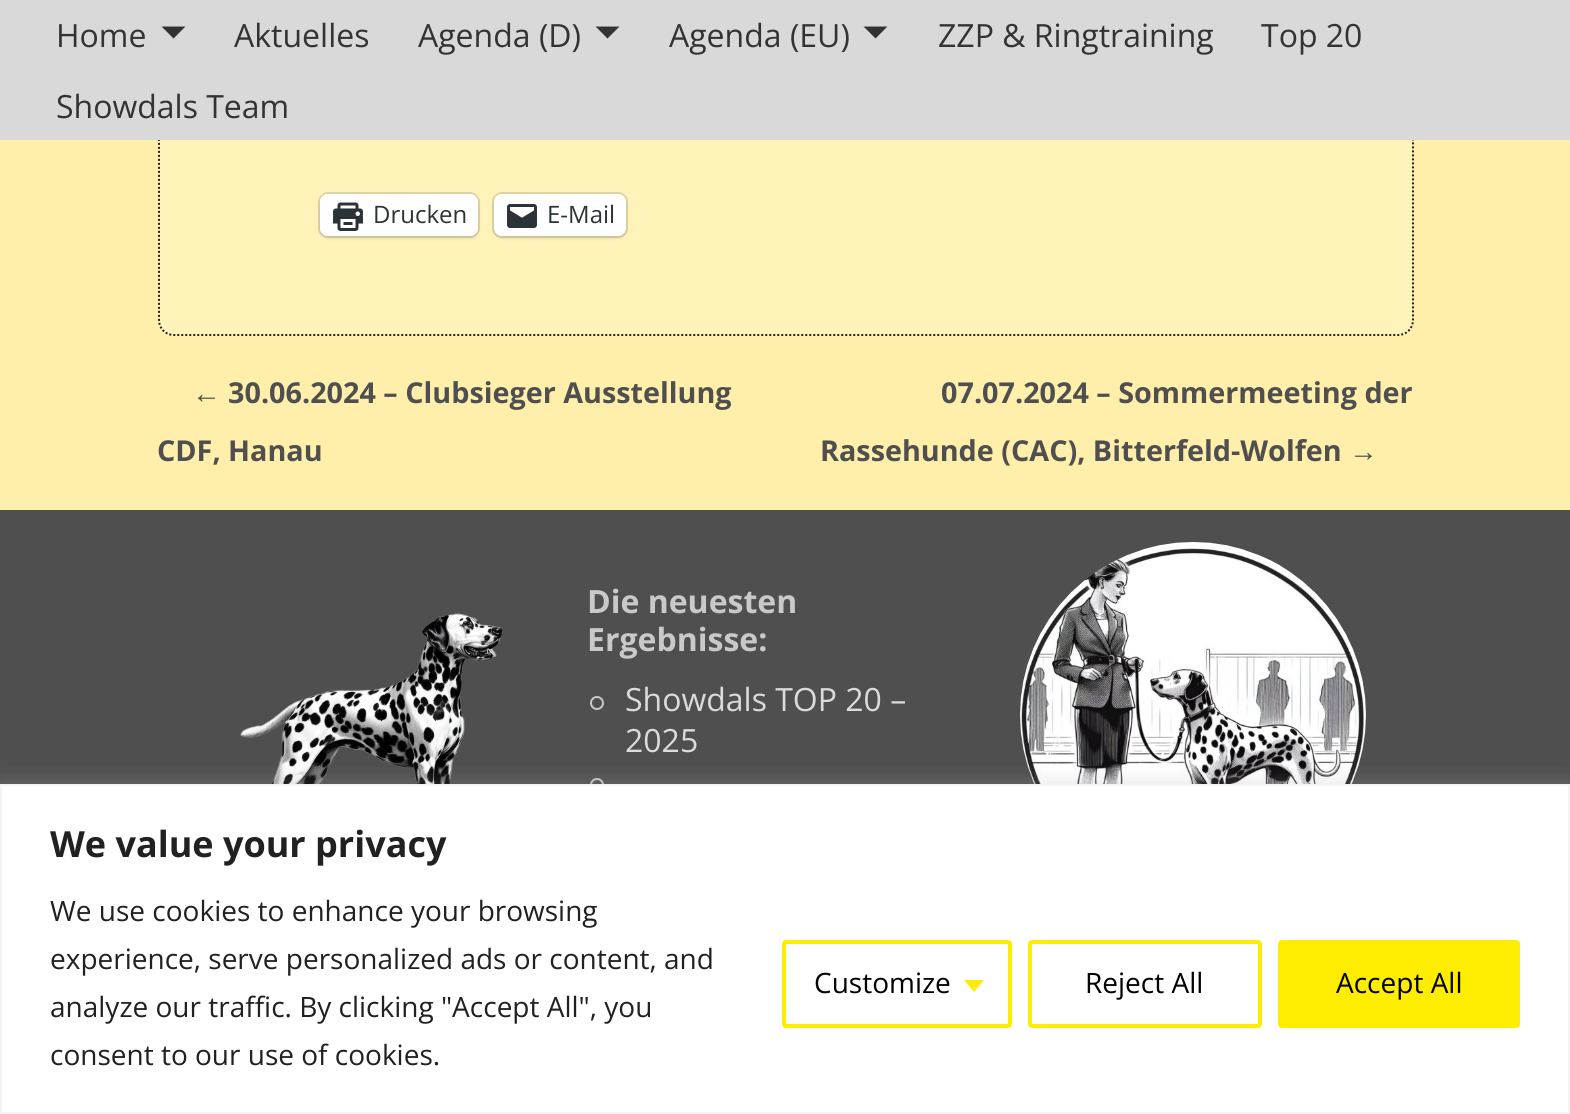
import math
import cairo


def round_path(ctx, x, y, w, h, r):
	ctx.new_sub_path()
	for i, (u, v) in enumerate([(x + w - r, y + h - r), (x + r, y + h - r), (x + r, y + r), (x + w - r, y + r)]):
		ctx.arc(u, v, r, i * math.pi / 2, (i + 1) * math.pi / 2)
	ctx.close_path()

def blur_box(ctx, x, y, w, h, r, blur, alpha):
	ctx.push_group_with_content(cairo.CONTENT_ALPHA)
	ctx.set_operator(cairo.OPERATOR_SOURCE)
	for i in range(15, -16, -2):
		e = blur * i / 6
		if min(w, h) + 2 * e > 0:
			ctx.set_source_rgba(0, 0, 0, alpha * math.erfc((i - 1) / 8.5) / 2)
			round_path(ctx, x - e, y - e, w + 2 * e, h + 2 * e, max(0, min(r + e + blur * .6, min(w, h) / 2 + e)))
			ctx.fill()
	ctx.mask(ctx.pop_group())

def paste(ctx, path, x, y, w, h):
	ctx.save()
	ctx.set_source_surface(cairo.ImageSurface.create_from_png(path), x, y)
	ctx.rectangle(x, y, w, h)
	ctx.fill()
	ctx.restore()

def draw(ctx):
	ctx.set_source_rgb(1, 0.937, 0.667)
	ctx.paint()
	ctx.set_source_rgb(1, 0.953, 0.729)
	round_path(ctx, 158, -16, 1256, 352, 16)
	ctx.fill()
	ctx.new_path()
	ctx.move_to(174, -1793)
	ctx.line_to(1398, -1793)
	ctx.curve_to(1406.5, -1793, 1413, -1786.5, 1413, -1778)
	ctx.line_to(1413, 320)
	ctx.curve_to(1413, 328.5, 1406.5, 335, 1398, 335)
	ctx.line_to(174, 335)
	ctx.curve_to(165.5, 335, 159, 328.5, 159, 320)
	ctx.line_to(159, -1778)
	ctx.curve_to(159, -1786.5, 165.5, -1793, 174, -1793)
	ctx.close_path()
	ctx.set_source_rgb(0.133, 0.133, 0.133)
	ctx.set_dash([2, 2])
	ctx.stroke()
	ctx.set_source_rgb(0.851, 0.851, 0.851)
	ctx.rectangle(0, 0, 1570, 140)
	ctx.fill()
	ctx.select_font_face('Open Sans')
	ctx.set_font_size(32)
	ctx.set_source_rgb(0.2, 0.2, 0.2)
	ctx.move_to(56, 47)
	ctx.show_text('Home')
	ctx.new_path()
	ctx.move_to(161.5, 26.5)
	ctx.line_to(185.5, 26.5)
	ctx.line_to(173.5, 38.5)
	ctx.close_path()
	ctx.fill()
	ctx.move_to(234, 47)
	ctx.show_text('Aktuelles')
	ctx.move_to(418, 47)
	ctx.show_text('Agenda (D)')
	ctx.new_path()
	ctx.move_to(595.5, 26.5)
	ctx.line_to(619.5, 26.5)
	ctx.line_to(607.5, 38.5)
	ctx.close_path()
	ctx.fill()
	ctx.move_to(669, 47)
	ctx.show_text('Agenda (EU)')
	ctx.new_path()
	ctx.move_to(863.5, 26.5)
	ctx.line_to(887.5, 26.5)
	ctx.line_to(875.5, 38.5)
	ctx.close_path()
	ctx.fill()
	for x, y, s in [
		(938, 47, 'ZZP & Ringtraining'),
		(1261, 47, 'Top 20'),
		(56, 118, 'Showdals Team'),
	]:
		ctx.move_to(x, y)
		ctx.show_text(s)
	round_path(ctx, 319, 193, 160, 44, 9)
	ctx.set_source_rgb(0.878, 0.839, 0.643)
	ctx.set_dash([])
	ctx.stroke()
	ctx.set_source_rgb(0, 0, 0)
	blur_box(ctx, 320, 196, 158, 42, 8, 2, 0.12)
	ctx.set_source_rgb(1, 1, 1)
	round_path(ctx, 320, 194, 158, 42, 8)
	ctx.fill()
	paste(ctx, 'media/1.png', 333, 202, 30, 29)
	ctx.set_font_size(24)
	ctx.set_source_rgb(0.173, 0.2, 0.22)
	ctx.move_to(373, 223)
	ctx.show_text('Drucken')
	round_path(ctx, 493, 193, 134, 44, 9)
	ctx.set_source_rgb(0.878, 0.839, 0.643)
	ctx.stroke()
	ctx.set_source_rgb(0, 0, 0)
	blur_box(ctx, 494, 196, 132, 42, 8, 2, 0.12)
	ctx.set_source_rgb(1, 1, 1)
	round_path(ctx, 494, 194, 132, 42, 8)
	ctx.fill()
	paste(ctx, 'media/2.png', 507, 204, 30, 24)
	ctx.set_source_rgb(0.173, 0.2, 0.22)
	ctx.move_to(547, 223)
	ctx.show_text('E-Mail')
	ctx.select_font_face('Liberation Sans')
	ctx.set_font_size(28.75)
	ctx.set_source_rgb(0.31, 0.31, 0.31)
	ctx.move_to(192, 403)
	ctx.show_text('←')
	ctx.select_font_face('Open Sans', cairo.FONT_SLANT_NORMAL, cairo.FONT_WEIGHT_BOLD)
	for x, y, s in [
		(228, 403, '30.06.2024 – Clubsieger Ausstellung'),
		(157, 461, 'CDF, Hanau'),
		(941, 403, '07.07.2024 – Sommermeeting der'),
		(820, 461, 'Rassehunde (CAC), Bitterfeld-Wolfen'),
	]:
		ctx.move_to(x, y)
		ctx.show_text(s)
	ctx.select_font_face('Liberation Sans')
	ctx.move_to(1349, 461)
	ctx.show_text('→')
	ctx.rectangle(0, 510, 1570, 274)
	ctx.fill()
	paste(ctx, 'media/3.png', 240, 613, 263, 171)
	ctx.select_font_face('Open Sans', cairo.FONT_SLANT_NORMAL, cairo.FONT_WEIGHT_BOLD)
	ctx.set_font_size(32)
	ctx.set_source_rgb(0.788, 0.788, 0.788)
	ctx.move_to(587, 613)
	ctx.show_text('Die neuesten')
	ctx.move_to(587, 651)
	ctx.show_text('Ergebnisse:')
	ctx.new_path()
	ctx.arc(597, 703, 6, 0, 2 * math.pi)
	ctx.stroke()
	ctx.select_font_face('Open Sans')
	ctx.set_source_rgb(0.859, 0.859, 0.859)
	ctx.move_to(625, 711)
	ctx.show_text('Showdals TOP 20 –')
	ctx.move_to(625, 752)
	ctx.show_text('2025')
	ctx.new_path()
	ctx.arc(597, 785, 6, 0, 2 * math.pi)
	ctx.set_source_rgb(0.788, 0.788, 0.788)
	ctx.stroke()
	paste(ctx, 'media/4.png', 1020, 542, 346, 242)
	ctx.set_source_rgb(0.675, 0.671, 0.671)
	blur_box(ctx, 0, 782, 1570, 330, 0, 10, 0.3)
	ctx.set_source_rgb(1, 1, 1)
	ctx.rectangle(1, 785, 1568, 328)
	ctx.fill_preserve()
	ctx.set_source_rgb(0.957, 0.957, 0.957)
	ctx.stroke()
	ctx.select_font_face('Open Sans', cairo.FONT_SLANT_NORMAL, cairo.FONT_WEIGHT_BOLD)
	ctx.set_font_size(36)
	ctx.set_source_rgb(0.129, 0.129, 0.129)
	ctx.move_to(50, 857)
	ctx.show_text('We value your privacy')
	ctx.select_font_face('Open Sans')
	ctx.set_font_size(28)
	for x, y, s in [
		(50, 921, 'We use cookies to enhance your browsing'),
		(50, 969, 'experience, serve personalized ads or content, and'),
		(50, 1017, 'analyze our traffic. By clicking "Accept All", you'),
		(50, 1065, 'consent to our use of cookies.'),
	]:
		ctx.move_to(x, y)
		ctx.show_text(s)
	round_path(ctx, 784, 942, 226, 84, 2)
	ctx.set_source_rgb(1, 0.929, 0)
	ctx.set_line_width(4)
	ctx.stroke()
	ctx.set_source_rgb(0, 0, 0)
	ctx.move_to(814, 993)
	ctx.show_text('Customize')
	ctx.set_source_rgb(1, 0.929, 0)
	ctx.new_path()
	ctx.move_to(964, 980)
	ctx.line_to(984, 980)
	ctx.line_to(974, 992)
	ctx.close_path()
	ctx.fill()
	round_path(ctx, 1030, 942, 230, 84, 2)
	ctx.stroke()
	ctx.set_source_rgb(0, 0, 0)
	ctx.move_to(1085, 993)
	ctx.show_text('Reject All')
	ctx.set_source_rgb(1, 0.929, 0)
	round_path(ctx, 1280, 942, 238, 84, 2)
	ctx.fill_preserve()
	ctx.stroke()
	ctx.set_source_rgb(0, 0, 0)
	ctx.move_to(1336, 993)
	ctx.show_text('Accept All')


surface = cairo.ImageSurface(cairo.FORMAT_RGB24, 1570, 1114)
ctx = cairo.Context(surface)
options = cairo.FontOptions()
options.set_hint_metrics(cairo.HINT_METRICS_OFF)
options.set_hint_style(cairo.HINT_STYLE_NONE)
ctx.set_font_options(options)
ctx.set_miter_limit(4)
draw(ctx)
surface.write_to_png('image.png')
